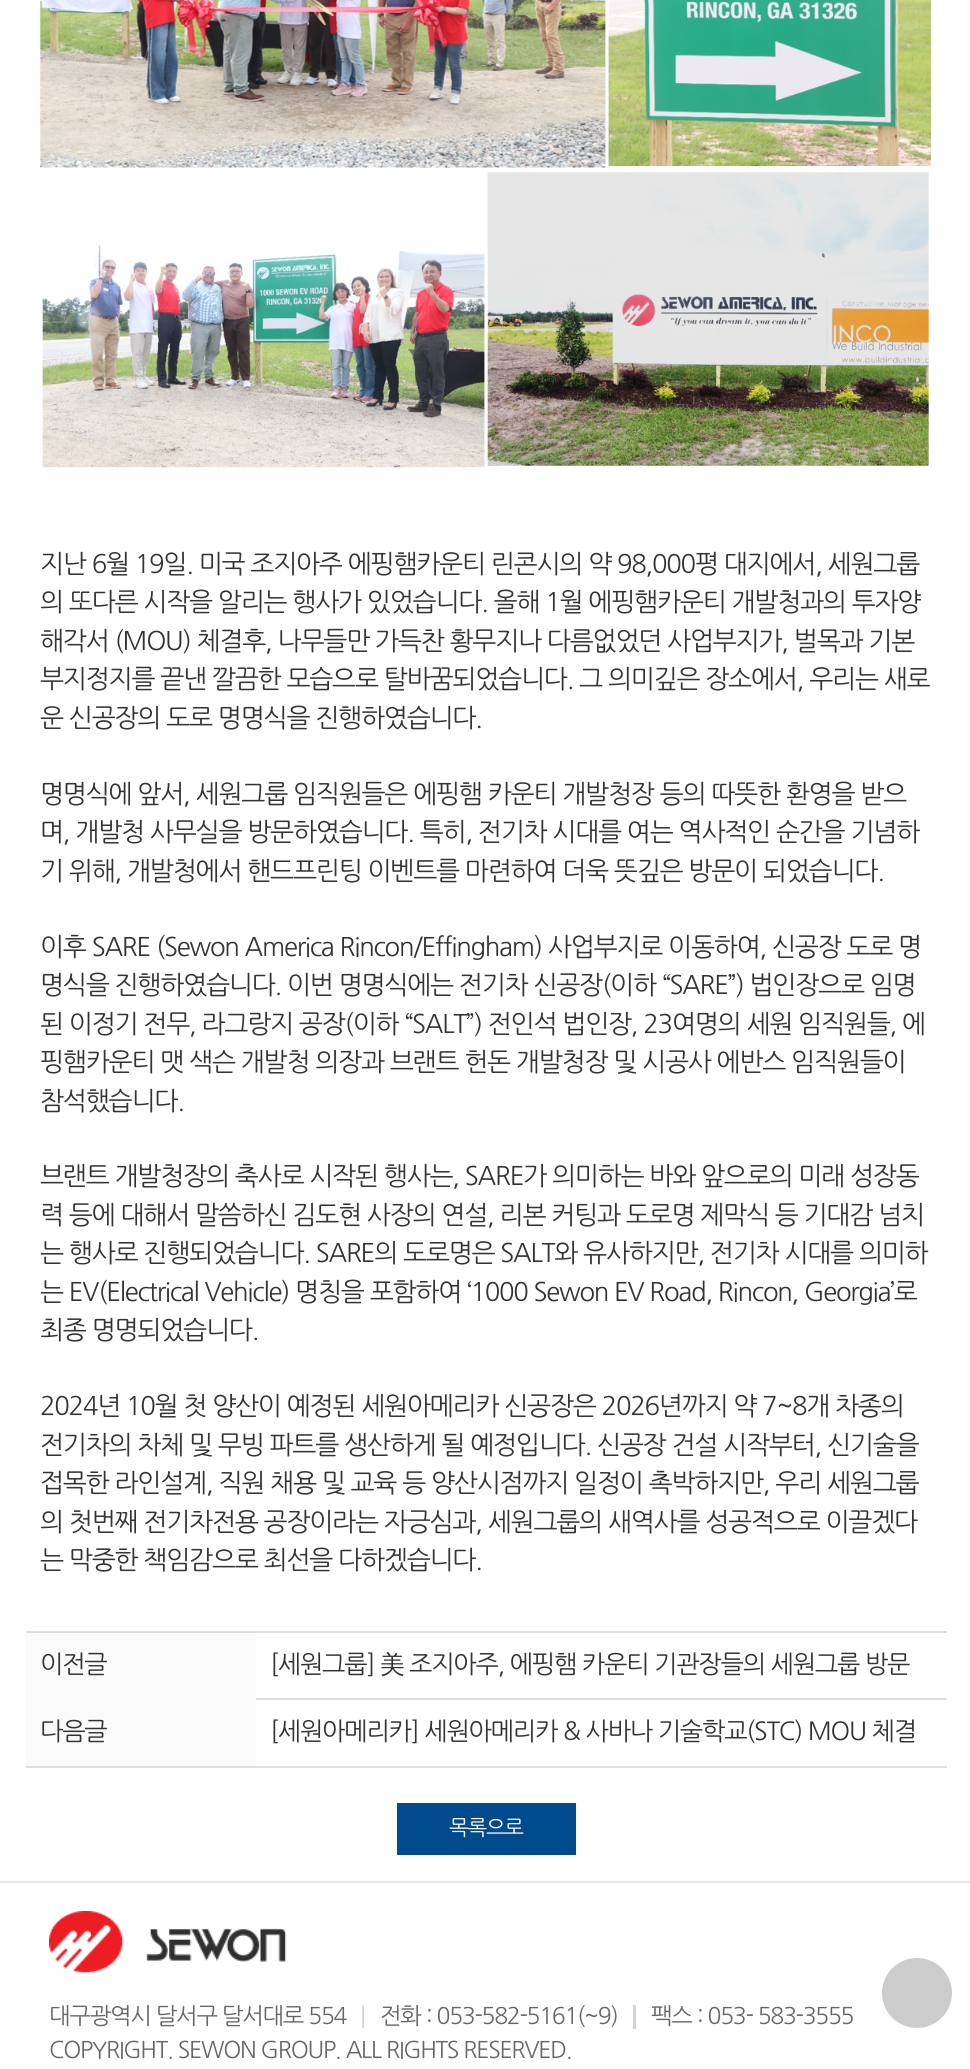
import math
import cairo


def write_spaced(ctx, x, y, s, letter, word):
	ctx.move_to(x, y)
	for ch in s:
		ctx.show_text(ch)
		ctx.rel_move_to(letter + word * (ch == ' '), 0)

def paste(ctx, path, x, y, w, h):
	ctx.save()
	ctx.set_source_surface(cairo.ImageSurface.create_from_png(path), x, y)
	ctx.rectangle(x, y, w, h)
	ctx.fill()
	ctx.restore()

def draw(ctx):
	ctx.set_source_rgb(1, 1, 1)
	ctx.paint()
	ctx.set_source_rgb(0.871, 0.871, 0.875)
	ctx.rectangle(26, 1631, 921, 2)
	ctx.fill()
	paste(ctx, 'media/1.png', 40, 0, 891, 468)
	ctx.select_font_face('NanumGothic')
	ctx.set_font_size(25.65)
	ctx.set_source_rgb(0.2, 0.2, 0.2)
	for x, y, s in [
		(40, 573, '지난 6월 19일. 미국 조지아주 에핑햄카운티 린콘시의 약 98,000평 대지에서, 세원그룹'),
		(40, 611, '의 또다른 시작을 알리는 행사가 있었습니다. 올해 1월 에핑햄카운티 개발청과의 투자양'),
		(40, 650, '해각서 (MOU) 체결후, 나무들만 가득찬 황무지나 다름없었던 사업부지가, 벌목과 기본'),
		(40, 688, '부지정지를 끝낸 깔끔한 모습으로 탈바꿈되었습니다. 그 의미깊은 장소에서, 우리는 새로'),
		(40, 727, '운 신공장의 도로 명명식을 진행하였습니다.'),
		(40, 803, '명명식에 앞서, 세원그룹 임직원들은 에핑햄 카운티 개발청장 등의 따뜻한 환영을 받으'),
		(40, 841, '며, 개발청 사무실을 방문하였습니다. 특히, 전기차 시대를 여는 역사적인 순간을 기념하'),
		(40, 880, '기 위해, 개발청에서 핸드프린팅 이벤트를 마련하여 더욱 뜻깊은 방문이 되었습니다.'),
		(40, 956, '이후 SARE (Sewon America Rincon/Effingham) 사업부지로 이동하여, 신공장 도로 명'),
		(40, 994, '명식을 진행하였습니다. 이번 명명식에는 전기차 신공장(이하 “SARE”) 법인장으로 임명'),
		(40, 1033, '된 이정기 전무, 라그랑지 공장(이하 “SALT”) 전인석 법인장, 23여명의 세원 임직원들, 에'),
		(40, 1071, '핑햄카운티 맷 색슨 개발청 의장과 브랜트 헌돈 개발청장 및 시공사 에반스 임직원들이'),
		(40, 1110, '참석했습니다.'),
		(40, 1185, '브랜트 개발청장의 축사로 시작된 행사는, SARE가 의미하는 바와 앞으로의 미래 성장동'),
		(40, 1224, '력 등에 대해서 말씀하신 김도현 사장의 연설, 리본 커팅과 도로명 제막식 등 기대감 넘치'),
		(40, 1262, '는 행사로 진행되었습니다. SARE의 도로명은 SALT와 유사하지만, 전기차 시대를 의미하'),
		(40, 1301, '는 EV(Electrical Vehicle) 명칭을 포함하여 ‘1000 Sewon EV Road, Rincon, Georgia’로'),
		(40, 1339, '최종 명명되었습니다.'),
		(40, 1415, '2024년 10월 첫 양산이 예정된 세원아메리카 신공장은 2026년까지 약 7~8개 차종의'),
		(40, 1454, '전기차의 차체 및 무빙 파트를 생산하게 될 예정입니다. 신공장 건설 시작부터, 신기술을'),
		(40, 1492, '접목한 라인설계, 직원 채용 및 교육 등 양산시점까지 일정이 촉박하지만, 우리 세원그룹'),
		(40, 1531, '의 첫번째 전기차전용 공장이라는 자긍심과, 세원그룹의 새역사를 성공적으로 이끌겠다'),
		(40, 1569, '는 막중한 책임감으로 최선을 다하겠습니다.'),
	]:
		write_spaced(ctx, x, y, s, -1.25, 0)
	ctx.set_source_rgb(0.871, 0.871, 0.875)
	ctx.rectangle(256, 1698, 691, 2)
	ctx.fill()
	ctx.set_source_rgb(0.98, 0.98, 0.98)
	ctx.rectangle(26, 1633, 230, 133)
	ctx.fill()
	ctx.set_font_size(24.9)
	ctx.set_source_rgb(0.2, 0.2, 0.2)
	write_spaced(ctx, 40, 1673, '이전글', -1.25, 0)
	write_spaced(ctx, 270, 1673, '[세원그룹]', -1.25, 0)
	ctx.select_font_face('WenQuanYi Zen Hei Medium')
	write_spaced(ctx, 380, 1673, '美', -1.25, 0)
	ctx.select_font_face('NanumGothic')
	write_spaced(ctx, 409, 1673, '조지아주, 에핑햄 카운티 기관장들의 세원그룹 방문', -1.25, 0)
	ctx.set_source_rgb(0.871, 0.871, 0.875)
	ctx.rectangle(26, 1766, 921, 2)
	ctx.fill()
	ctx.set_source_rgb(0.2, 0.2, 0.2)
	write_spaced(ctx, 40, 1740, '다음글', -1.25, 0)
	write_spaced(ctx, 270, 1740, '[세원아메리카] 세원아메리카 & 사바나 기술학교(STC) MOU 체결', -1.25, 0)
	ctx.set_source_rgb(0, 0.29, 0.553)
	ctx.rectangle(397, 1803, 179, 52)
	ctx.fill()
	ctx.set_font_size(21)
	ctx.set_source_rgb(1, 1, 1)
	write_spaced(ctx, 449, 1835, '목록으로', -1.3, 0)
	ctx.set_source_rgb(0.902, 0.902, 0.902)
	ctx.rectangle(0, 1881, 970, 2)
	ctx.fill()
	paste(ctx, 'media/2.png', 49, 1911, 237, 62)
	ctx.set_font_size(23)
	ctx.set_source_rgb(0.4, 0.4, 0.4)
	write_spaced(ctx, 49, 2024, '대구광역시 달서구 달서대로 554', -1.3, 0)
	paste(ctx, 'media/3.png', 362, 2005, 2, 24)
	write_spaced(ctx, 380, 2024, '전화 : 053-582-5161(~9)', -1.3, 0)
	ctx.set_source_rgb(0.827, 0.831, 0.839)
	ctx.rectangle(633, 2005, 3, 24)
	ctx.fill()
	ctx.set_source_rgb(0.4, 0.4, 0.4)
	write_spaced(ctx, 651, 2024, '팩스 : 053- 583-3555', -1.3, 0)
	write_spaced(ctx, 49, 2058, 'COPYRIGHT. SEWON GROUP. ALL RIGHTS RESERVED.', -1.3, 0)
	ctx.set_source_rgb(0.8, 0.8, 0.8)
	ctx.new_path()
	ctx.arc(917, 1993, 35, 0, 2 * math.pi)
	ctx.fill()


surface = cairo.ImageSurface(cairo.FORMAT_RGB24, 970, 2069)
ctx = cairo.Context(surface)
options = cairo.FontOptions()
options.set_hint_metrics(cairo.HINT_METRICS_OFF)
options.set_hint_style(cairo.HINT_STYLE_NONE)
ctx.set_font_options(options)
ctx.set_miter_limit(4)
draw(ctx)
surface.write_to_png('image.png')
